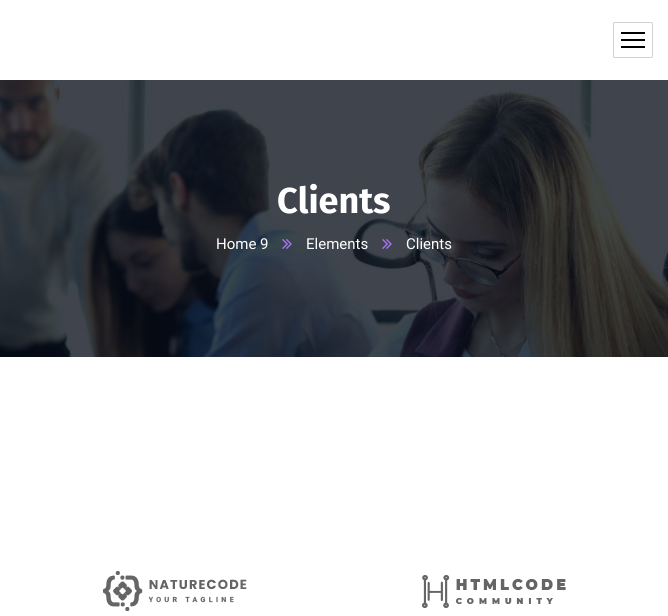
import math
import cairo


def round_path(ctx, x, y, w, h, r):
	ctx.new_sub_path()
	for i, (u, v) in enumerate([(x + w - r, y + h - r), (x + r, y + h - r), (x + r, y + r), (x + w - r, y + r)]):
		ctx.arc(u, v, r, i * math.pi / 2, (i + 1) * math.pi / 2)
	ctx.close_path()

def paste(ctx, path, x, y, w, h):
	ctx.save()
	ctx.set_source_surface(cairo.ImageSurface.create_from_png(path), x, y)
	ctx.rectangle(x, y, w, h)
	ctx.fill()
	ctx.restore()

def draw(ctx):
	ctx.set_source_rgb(1, 1, 1)
	ctx.paint()
	round_path(ctx, 613.5, 22.5, 39, 35, 1.5)
	ctx.set_source_rgb(0.82, 0.82, 0.82)
	ctx.set_line_width(1)
	ctx.stroke()
	ctx.set_source_rgb(0, 0, 0)
	ctx.rectangle(621, 32, 24, 2)
	ctx.rectangle(621, 39, 24, 2)
	ctx.rectangle(621, 46, 24, 2)
	ctx.fill()
	paste(ctx, 'media/1.png', 0, 80, 668, 277)
	ctx.select_font_face('Fira Sans', cairo.FONT_SLANT_NORMAL, cairo.FONT_WEIGHT_BOLD)
	ctx.set_font_size(36)
	ctx.set_source_rgb(1, 1, 1)
	ctx.move_to(277, 213)
	ctx.show_text('Clients')
	ctx.select_font_face('Roboto')
	ctx.set_font_size(15)
	ctx.move_to(216, 249)
	ctx.show_text('Home 9')
	paste(ctx, 'media/2.png', 282, 239, 10, 10)
	ctx.move_to(306, 249)
	ctx.show_text('Elements')
	paste(ctx, 'media/3.png', 382, 239, 10, 10)
	ctx.move_to(406, 249)
	ctx.show_text('Clients')
	paste(ctx, 'media/4.png', 103, 571, 144, 40)
	paste(ctx, 'media/5.png', 422, 575, 144, 33)


surface = cairo.ImageSurface(cairo.FORMAT_RGB24, 668, 616)
ctx = cairo.Context(surface)
options = cairo.FontOptions()
options.set_hint_metrics(cairo.HINT_METRICS_OFF)
options.set_hint_style(cairo.HINT_STYLE_NONE)
ctx.set_font_options(options)
ctx.set_miter_limit(4)
draw(ctx)
surface.write_to_png('image.png')
